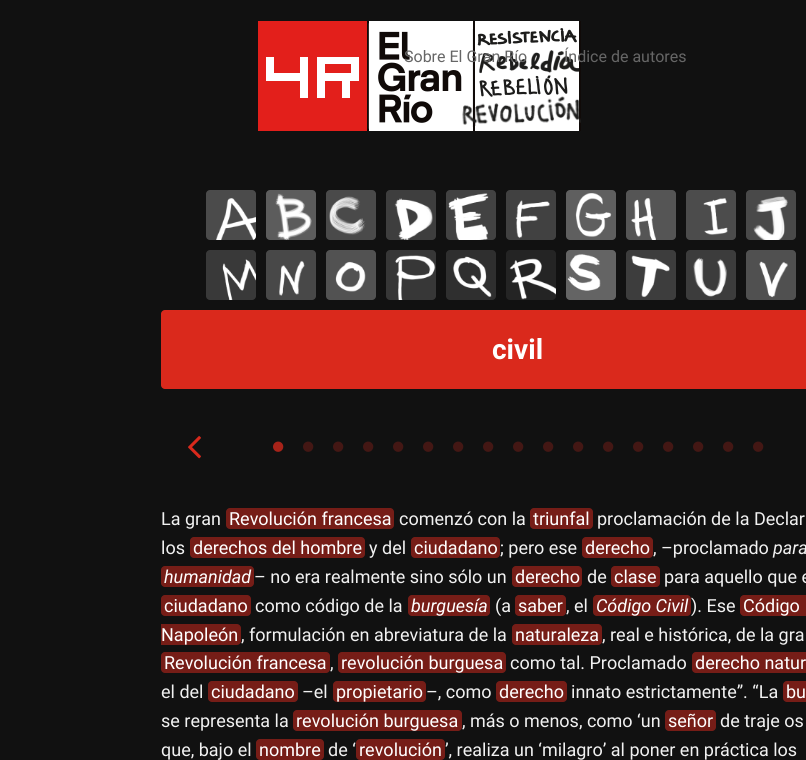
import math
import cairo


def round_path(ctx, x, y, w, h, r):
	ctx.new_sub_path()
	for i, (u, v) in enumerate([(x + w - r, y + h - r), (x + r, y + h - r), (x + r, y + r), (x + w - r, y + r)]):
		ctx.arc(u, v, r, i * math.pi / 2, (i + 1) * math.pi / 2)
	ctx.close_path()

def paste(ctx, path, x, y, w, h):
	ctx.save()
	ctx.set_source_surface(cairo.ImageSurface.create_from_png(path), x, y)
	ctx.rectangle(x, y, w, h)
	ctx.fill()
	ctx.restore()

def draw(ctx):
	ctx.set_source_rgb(0.067, 0.067, 0.067)
	ctx.paint()
	paste(ctx, 'media/1.png', 258, 21, 323, 110)
	ctx.select_font_face('Roboto')
	ctx.set_font_size(16)
	ctx.set_source_rgb(0.4, 0.4, 0.4)
	ctx.move_to(404, 62)
	ctx.show_text('Sobre El Gran Río')
	ctx.move_to(564, 62)
	ctx.show_text('Índice de autores')
	ctx.set_source_rgb(0.294, 0.294, 0.294)
	round_path(ctx, 206, 190, 50, 50, 4)
	ctx.fill()
	paste(ctx, 'media/2.png', 216, 198, 40, 42)
	ctx.set_source_rgb(0.361, 0.361, 0.361)
	round_path(ctx, 266, 190, 50, 50, 4)
	ctx.fill()
	paste(ctx, 'media/3.png', 275, 193, 37, 47)
	ctx.set_source_rgb(0.29, 0.29, 0.29)
	round_path(ctx, 326, 190, 50, 50, 4)
	ctx.fill()
	paste(ctx, 'media/4.png', 329, 196, 37, 39)
	ctx.set_source_rgb(0.243, 0.243, 0.243)
	round_path(ctx, 386, 190, 50, 50, 4)
	ctx.fill()
	paste(ctx, 'media/5.png', 394, 198, 39, 42)
	ctx.set_source_rgb(0.259, 0.259, 0.259)
	round_path(ctx, 446, 190, 50, 50, 4)
	ctx.fill()
	paste(ctx, 'media/6.png', 448, 193, 41, 47)
	ctx.set_source_rgb(0.255, 0.255, 0.255)
	round_path(ctx, 506, 190, 50, 50, 4)
	ctx.fill()
	paste(ctx, 'media/7.png', 515, 200, 35, 39)
	ctx.set_source_rgb(0.373, 0.373, 0.373)
	round_path(ctx, 566, 190, 50, 50, 4)
	ctx.fill()
	paste(ctx, 'media/8.png', 575, 193, 37, 44)
	ctx.set_source_rgb(0.333, 0.333, 0.333)
	round_path(ctx, 626, 190, 50, 50, 4)
	ctx.fill()
	paste(ctx, 'media/9.png', 631, 198, 25, 42)
	ctx.set_source_rgb(0.298, 0.298, 0.298)
	round_path(ctx, 686, 190, 50, 50, 4)
	ctx.fill()
	paste(ctx, 'media/10.png', 703, 198, 25, 37)
	ctx.set_source_rgb(0.286, 0.286, 0.286)
	round_path(ctx, 746, 190, 50, 50, 4)
	ctx.fill()
	paste(ctx, 'media/11.png', 753, 196, 35, 44)
	ctx.set_source_rgb(0.224, 0.224, 0.224)
	round_path(ctx, 206, 250, 50, 50, 4)
	ctx.fill()
	paste(ctx, 'media/12.png', 222, 259, 34, 41)
	ctx.set_source_rgb(0.282, 0.282, 0.282)
	round_path(ctx, 266, 250, 50, 50, 4)
	ctx.fill()
	paste(ctx, 'media/13.png', 279, 260, 26, 36)
	ctx.set_source_rgb(0.322, 0.322, 0.322)
	round_path(ctx, 326, 250, 50, 50, 4)
	ctx.fill()
	paste(ctx, 'media/14.png', 335, 261, 31, 31)
	ctx.set_source_rgb(0.216, 0.216, 0.216)
	round_path(ctx, 386, 250, 50, 50, 4)
	ctx.fill()
	paste(ctx, 'media/15.png', 395, 255, 41, 45)
	ctx.set_source_rgb(0.184, 0.184, 0.184)
	round_path(ctx, 446, 250, 50, 50, 4)
	ctx.fill()
	paste(ctx, 'media/16.png', 453, 256, 39, 41)
	ctx.set_source_rgb(0.141, 0.141, 0.141)
	round_path(ctx, 506, 250, 50, 50, 4)
	ctx.fill()
	paste(ctx, 'media/17.png', 509, 258, 47, 42)
	ctx.set_source_rgb(0.392, 0.392, 0.392)
	round_path(ctx, 566, 250, 50, 50, 4)
	ctx.fill()
	paste(ctx, 'media/18.png', 567, 254, 34, 37)
	ctx.set_source_rgb(0.239, 0.239, 0.239)
	round_path(ctx, 626, 250, 50, 50, 4)
	ctx.fill()
	paste(ctx, 'media/19.png', 631, 255, 39, 43)
	ctx.set_source_rgb(0.235, 0.235, 0.235)
	round_path(ctx, 686, 250, 50, 50, 4)
	ctx.fill()
	paste(ctx, 'media/20.png', 693, 257, 34, 40)
	ctx.set_source_rgb(0.314, 0.314, 0.314)
	round_path(ctx, 746, 250, 50, 50, 4)
	ctx.fill()
	paste(ctx, 'media/21.png', 759, 261, 29, 37)
	ctx.set_source_rgb(0.855, 0.161, 0.11)
	round_path(ctx, 161, 310, 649, 79, 4)
	ctx.fill()
	ctx.select_font_face('Roboto', cairo.FONT_SLANT_NORMAL, cairo.FONT_WEIGHT_BOLD)
	ctx.set_font_size(28)
	ctx.set_source_rgb(1, 1, 1)
	ctx.move_to(492, 359)
	ctx.show_text('civil')
	paste(ctx, 'media/22.png', 188, 436, 13, 23)
	paste(ctx, 'media/23.png', 273, 441, 11, 11)
	paste(ctx, 'media/24.png', 303, 441, 11, 11)
	paste(ctx, 'media/24.png', 333, 441, 11, 11)
	paste(ctx, 'media/24.png', 363, 441, 11, 11)
	paste(ctx, 'media/24.png', 393, 441, 11, 11)
	paste(ctx, 'media/24.png', 423, 441, 11, 11)
	paste(ctx, 'media/24.png', 453, 441, 11, 11)
	paste(ctx, 'media/24.png', 483, 441, 11, 11)
	paste(ctx, 'media/24.png', 513, 441, 11, 11)
	paste(ctx, 'media/24.png', 543, 441, 11, 11)
	paste(ctx, 'media/24.png', 573, 441, 11, 11)
	paste(ctx, 'media/24.png', 603, 441, 11, 11)
	paste(ctx, 'media/24.png', 633, 441, 11, 11)
	paste(ctx, 'media/24.png', 663, 441, 11, 11)
	paste(ctx, 'media/24.png', 693, 441, 11, 11)
	paste(ctx, 'media/24.png', 723, 441, 11, 11)
	paste(ctx, 'media/24.png', 753, 441, 11, 11)
	ctx.select_font_face('Roboto')
	ctx.set_font_size(18)
	ctx.set_source_rgb(0.945, 0.945, 0.945)
	ctx.move_to(161, 525)
	ctx.show_text('La gran')
	ctx.set_source_rgb(0.463, 0.114, 0.09)
	round_path(ctx, 226, 508, 168, 21, 4)
	ctx.fill()
	ctx.set_source_rgb(1, 1, 1)
	ctx.move_to(229, 525)
	ctx.show_text('Revolución francesa')
	ctx.set_source_rgb(0.945, 0.945, 0.945)
	ctx.move_to(399, 525)
	ctx.show_text('comenzó con la')
	ctx.set_source_rgb(0.463, 0.114, 0.09)
	round_path(ctx, 530, 508, 63, 21, 4)
	ctx.fill()
	ctx.set_source_rgb(1, 1, 1)
	ctx.move_to(533, 525)
	ctx.show_text('triunfal')
	ctx.set_source_rgb(0.945, 0.945, 0.945)
	ctx.move_to(597, 525)
	ctx.show_text('proclamación de la Declar')
	ctx.move_to(161, 554)
	ctx.show_text('los')
	ctx.set_source_rgb(0.463, 0.114, 0.09)
	round_path(ctx, 190, 537, 175, 21, 4)
	ctx.fill()
	ctx.set_source_rgb(1, 1, 1)
	ctx.move_to(193, 554)
	ctx.show_text('derechos del hombre')
	ctx.set_source_rgb(0.945, 0.945, 0.945)
	ctx.move_to(369, 554)
	ctx.show_text('y del')
	ctx.set_source_rgb(0.463, 0.114, 0.09)
	round_path(ctx, 411, 537, 89, 21, 4)
	ctx.fill()
	ctx.set_source_rgb(1, 1, 1)
	ctx.move_to(414, 554)
	ctx.show_text('ciudadano')
	ctx.set_source_rgb(0.945, 0.945, 0.945)
	ctx.move_to(500, 554)
	ctx.show_text('; pero ese')
	ctx.set_source_rgb(0.463, 0.114, 0.09)
	round_path(ctx, 582, 537, 71, 21, 4)
	ctx.fill()
	ctx.set_source_rgb(1, 1, 1)
	ctx.move_to(585, 554)
	ctx.show_text('derecho')
	ctx.set_source_rgb(0.945, 0.945, 0.945)
	ctx.move_to(653, 554)
	ctx.show_text(', –proclamado')
	ctx.select_font_face('Roboto', cairo.FONT_SLANT_ITALIC)
	ctx.move_to(773, 554)
	ctx.show_text('para')
	ctx.set_source_rgb(0.463, 0.114, 0.09)
	round_path(ctx, 161, 566, 93, 21, 4)
	ctx.fill()
	ctx.set_source_rgb(1, 1, 1)
	ctx.move_to(164, 583)
	ctx.show_text('humanidad')
	ctx.select_font_face('Roboto')
	ctx.set_source_rgb(0.945, 0.945, 0.945)
	ctx.move_to(254, 583)
	ctx.show_text('– no era realmente sino sólo un')
	ctx.set_source_rgb(0.463, 0.114, 0.09)
	round_path(ctx, 512, 566, 70, 21, 4)
	ctx.fill()
	ctx.set_source_rgb(1, 1, 1)
	ctx.move_to(515, 583)
	ctx.show_text('derecho')
	ctx.set_source_rgb(0.945, 0.945, 0.945)
	ctx.move_to(587, 583)
	ctx.show_text('de')
	ctx.set_source_rgb(0.463, 0.114, 0.09)
	round_path(ctx, 611, 566, 49, 21, 4)
	ctx.fill()
	ctx.set_source_rgb(1, 1, 1)
	ctx.move_to(614, 583)
	ctx.show_text('clase')
	ctx.set_source_rgb(0.945, 0.945, 0.945)
	ctx.move_to(664, 583)
	ctx.show_text('para aquello que e')
	ctx.set_source_rgb(0.463, 0.114, 0.09)
	round_path(ctx, 161, 595, 90, 21, 4)
	ctx.fill()
	ctx.set_source_rgb(1, 1, 1)
	ctx.move_to(164, 612)
	ctx.show_text('ciudadano')
	ctx.set_source_rgb(0.945, 0.945, 0.945)
	ctx.move_to(255, 612)
	ctx.show_text('como código de la')
	ctx.set_source_rgb(0.463, 0.114, 0.09)
	round_path(ctx, 408, 595, 82, 21, 4)
	ctx.fill()
	ctx.select_font_face('Roboto', cairo.FONT_SLANT_ITALIC)
	ctx.set_source_rgb(1, 1, 1)
	ctx.move_to(411, 612)
	ctx.show_text('burguesía')
	ctx.select_font_face('Roboto')
	ctx.set_source_rgb(0.945, 0.945, 0.945)
	ctx.move_to(495, 612)
	ctx.show_text('(a')
	ctx.set_source_rgb(0.463, 0.114, 0.09)
	round_path(ctx, 515, 595, 51, 21, 4)
	ctx.fill()
	ctx.set_source_rgb(1, 1, 1)
	ctx.move_to(518, 612)
	ctx.show_text('saber')
	ctx.set_source_rgb(0.945, 0.945, 0.945)
	ctx.move_to(566, 612)
	ctx.show_text(', el')
	ctx.set_source_rgb(0.463, 0.114, 0.09)
	round_path(ctx, 593, 595, 98, 21, 4)
	ctx.fill()
	ctx.select_font_face('Roboto', cairo.FONT_SLANT_ITALIC)
	ctx.set_source_rgb(1, 1, 1)
	ctx.move_to(596, 612)
	ctx.show_text('Código Civil')
	ctx.select_font_face('Roboto')
	ctx.set_source_rgb(0.945, 0.945, 0.945)
	ctx.move_to(691, 612)
	ctx.show_text('). Ese')
	ctx.set_source_rgb(0.463, 0.114, 0.09)
	ctx.new_path()
	ctx.move_to(744, 595)
	ctx.line_to(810, 595)
	ctx.line_to(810, 616)
	ctx.line_to(744, 616)
	ctx.curve_to(742, 616, 740, 614, 740, 612)
	ctx.line_to(740, 599)
	ctx.curve_to(740, 597, 742, 595, 744, 595)
	ctx.close_path()
	ctx.fill()
	ctx.set_source_rgb(1, 1, 1)
	ctx.move_to(743, 612)
	ctx.show_text('Código')
	ctx.set_source_rgb(0.463, 0.114, 0.09)
	ctx.new_path()
	ctx.move_to(161, 624)
	ctx.line_to(237, 624)
	ctx.curve_to(239, 624, 241, 626, 241, 628)
	ctx.line_to(241, 641)
	ctx.curve_to(241, 643, 239, 645, 237, 645)
	ctx.line_to(161, 645)
	ctx.close_path()
	ctx.fill()
	ctx.set_source_rgb(1, 1, 1)
	ctx.move_to(161, 641)
	ctx.show_text('Napoleón')
	ctx.set_source_rgb(0.945, 0.945, 0.945)
	ctx.move_to(241, 641)
	ctx.show_text(', formulación en abreviatura de la')
	ctx.set_source_rgb(0.463, 0.114, 0.09)
	round_path(ctx, 512, 624, 90, 21, 4)
	ctx.fill()
	ctx.set_source_rgb(1, 1, 1)
	ctx.move_to(515, 641)
	ctx.show_text('naturaleza')
	ctx.set_source_rgb(0.945, 0.945, 0.945)
	ctx.move_to(602, 641)
	ctx.show_text(', real e histórica, de la gra')
	ctx.set_source_rgb(0.463, 0.114, 0.09)
	round_path(ctx, 161, 652, 169, 21, 4)
	ctx.fill()
	ctx.set_source_rgb(1, 1, 1)
	ctx.move_to(164, 669)
	ctx.show_text('Revolución francesa')
	ctx.set_source_rgb(0.945, 0.945, 0.945)
	ctx.move_to(330, 669)
	ctx.show_text(',')
	ctx.set_source_rgb(0.463, 0.114, 0.09)
	round_path(ctx, 338, 652, 168, 21, 4)
	ctx.fill()
	ctx.set_source_rgb(1, 1, 1)
	ctx.move_to(341, 669)
	ctx.show_text('revolución burguesa')
	ctx.set_source_rgb(0.945, 0.945, 0.945)
	ctx.move_to(510, 669)
	ctx.show_text('como tal. Proclamado')
	ctx.set_source_rgb(0.463, 0.114, 0.09)
	round_path(ctx, 692, 652, 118, 21, 4)
	ctx.fill()
	ctx.set_source_rgb(1, 1, 1)
	ctx.move_to(695, 669)
	ctx.show_text('derecho natur')
	ctx.set_source_rgb(0.945, 0.945, 0.945)
	ctx.move_to(161, 698)
	ctx.show_text('el del')
	ctx.set_source_rgb(0.463, 0.114, 0.09)
	round_path(ctx, 208, 681, 90, 21, 4)
	ctx.fill()
	ctx.set_source_rgb(1, 1, 1)
	ctx.move_to(211, 698)
	ctx.show_text('ciudadano')
	ctx.set_source_rgb(0.945, 0.945, 0.945)
	ctx.move_to(302, 698)
	ctx.show_text('–el')
	ctx.set_source_rgb(0.463, 0.114, 0.09)
	round_path(ctx, 333, 681, 93, 21, 4)
	ctx.fill()
	ctx.set_source_rgb(1, 1, 1)
	ctx.move_to(336, 698)
	ctx.show_text('propietario')
	ctx.set_source_rgb(0.945, 0.945, 0.945)
	ctx.move_to(426, 698)
	ctx.show_text('–, como')
	ctx.set_source_rgb(0.463, 0.114, 0.09)
	round_path(ctx, 496, 681, 71, 21, 4)
	ctx.fill()
	ctx.set_source_rgb(1, 1, 1)
	ctx.move_to(499, 698)
	ctx.show_text('derecho')
	ctx.set_source_rgb(0.945, 0.945, 0.945)
	ctx.move_to(571, 698)
	ctx.show_text('innato estrictamente”. “La')
	ctx.set_source_rgb(0.463, 0.114, 0.09)
	round_path(ctx, 783, 681, 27, 21, 4)
	ctx.fill()
	ctx.set_source_rgb(1, 1, 1)
	ctx.move_to(786, 698)
	ctx.show_text('bu')
	ctx.set_source_rgb(0.945, 0.945, 0.945)
	ctx.move_to(161, 727)
	ctx.show_text('se representa la')
	ctx.set_source_rgb(0.463, 0.114, 0.09)
	round_path(ctx, 293, 710, 169, 21, 4)
	ctx.fill()
	ctx.set_source_rgb(1, 1, 1)
	ctx.move_to(296, 727)
	ctx.show_text('revolución burguesa')
	ctx.set_source_rgb(0.945, 0.945, 0.945)
	ctx.move_to(462, 727)
	ctx.show_text(', más o menos, como ‘un')
	ctx.set_source_rgb(0.463, 0.114, 0.09)
	round_path(ctx, 665, 710, 51, 21, 4)
	ctx.fill()
	ctx.set_source_rgb(1, 1, 1)
	ctx.move_to(668, 727)
	ctx.show_text('señor')
	ctx.set_source_rgb(0.945, 0.945, 0.945)
	ctx.move_to(720, 727)
	ctx.show_text('de traje os')
	ctx.move_to(161, 756)
	ctx.show_text('que, bajo el')
	ctx.set_source_rgb(0.463, 0.114, 0.09)
	round_path(ctx, 256, 739, 68, 21, 4)
	ctx.fill()
	ctx.set_source_rgb(1, 1, 1)
	ctx.move_to(259, 756)
	ctx.show_text('nombre')
	ctx.set_source_rgb(0.945, 0.945, 0.945)
	ctx.move_to(328, 756)
	ctx.show_text('de ‘')
	ctx.set_source_rgb(0.463, 0.114, 0.09)
	round_path(ctx, 356, 739, 89, 21, 4)
	ctx.fill()
	ctx.set_source_rgb(1, 1, 1)
	ctx.move_to(359, 756)
	ctx.show_text('revolución')
	ctx.set_source_rgb(0.945, 0.945, 0.945)
	ctx.move_to(445, 756)
	ctx.show_text('’, realiza un ‘milagro’ al poner en práctica los')


surface = cairo.ImageSurface(cairo.FORMAT_RGB24, 806, 760)
ctx = cairo.Context(surface)
options = cairo.FontOptions()
options.set_hint_metrics(cairo.HINT_METRICS_OFF)
options.set_hint_style(cairo.HINT_STYLE_NONE)
ctx.set_font_options(options)
ctx.set_miter_limit(4)
draw(ctx)
surface.write_to_png('image.png')
